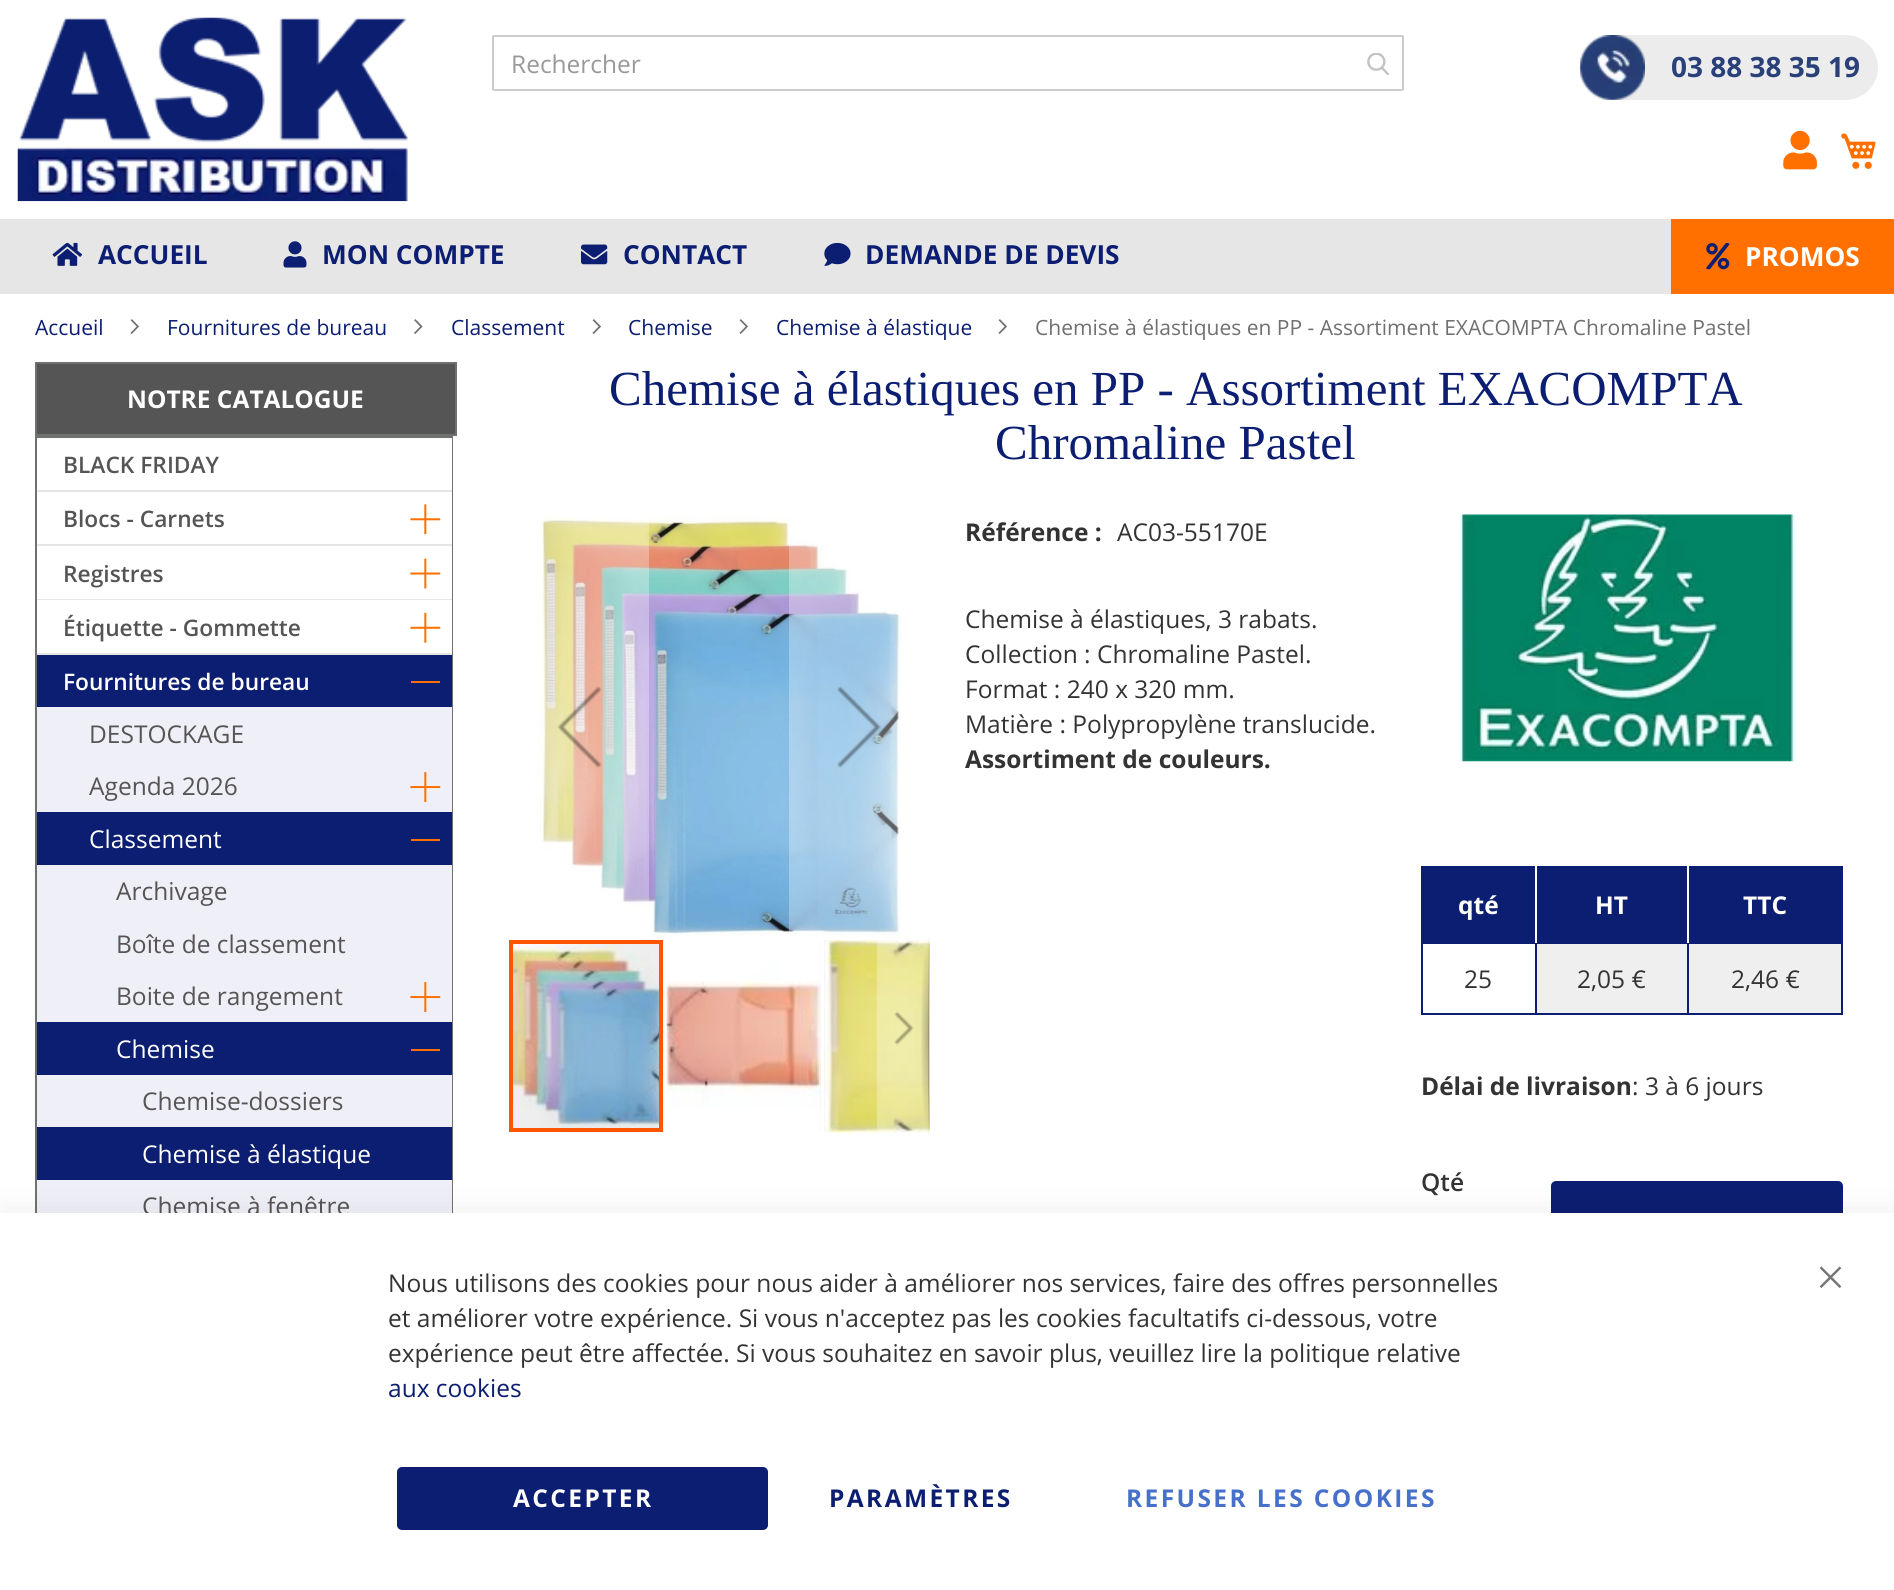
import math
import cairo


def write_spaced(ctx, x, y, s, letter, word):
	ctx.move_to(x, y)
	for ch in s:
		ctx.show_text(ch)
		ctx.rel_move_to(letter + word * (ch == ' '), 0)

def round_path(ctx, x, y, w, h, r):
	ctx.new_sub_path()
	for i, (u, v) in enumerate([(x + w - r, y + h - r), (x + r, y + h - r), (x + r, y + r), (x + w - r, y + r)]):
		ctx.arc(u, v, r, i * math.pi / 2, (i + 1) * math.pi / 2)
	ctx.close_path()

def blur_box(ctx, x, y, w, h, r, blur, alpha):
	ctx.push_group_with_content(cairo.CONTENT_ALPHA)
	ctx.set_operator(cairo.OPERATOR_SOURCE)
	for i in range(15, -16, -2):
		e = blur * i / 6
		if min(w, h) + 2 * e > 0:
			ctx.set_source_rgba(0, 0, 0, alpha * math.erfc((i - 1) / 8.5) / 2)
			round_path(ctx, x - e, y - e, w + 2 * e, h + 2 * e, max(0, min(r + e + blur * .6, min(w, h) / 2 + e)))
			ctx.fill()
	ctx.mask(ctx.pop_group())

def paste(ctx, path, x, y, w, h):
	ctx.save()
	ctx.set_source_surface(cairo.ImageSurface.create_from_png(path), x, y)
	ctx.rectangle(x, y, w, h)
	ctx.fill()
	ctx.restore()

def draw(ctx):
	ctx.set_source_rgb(1, 1, 1)
	ctx.paint()
	paste(ctx, 'media/1.png', 17, 17, 391, 185)
	round_path(ctx, 493, 36, 910, 54, 1)
	ctx.set_source_rgb(0.8, 0.8, 0.8)
	ctx.stroke()
	ctx.select_font_face('Open Sans')
	ctx.set_font_size(24.5)
	ctx.set_source_rgb(0.6, 0.6, 0.6)
	ctx.move_to(511, 73)
	ctx.show_text('Rechercher')
	paste(ctx, 'media/2.png', 1367, 53, 22, 22)
	ctx.set_source_rgb(0.925, 0.925, 0.925)
	round_path(ctx, 1580, 35, 298, 65, 32.5)
	ctx.fill()
	paste(ctx, 'media/3.png', 1580, 35, 65, 65)
	ctx.select_font_face('Open Sans', cairo.FONT_SLANT_NORMAL, cairo.FONT_WEIGHT_BOLD)
	ctx.set_font_size(28)
	ctx.set_source_rgb(0.161, 0.251, 0.475)
	ctx.move_to(1671, 77)
	ctx.show_text('03 88 38 35 19')
	paste(ctx, 'media/4.png', 1783, 130, 34, 40)
	paste(ctx, 'media/5.png', 1841, 133, 35, 36)
	ctx.set_source_rgb(0.902, 0.902, 0.902)
	ctx.rectangle(0, 219, 1671, 75)
	ctx.fill()
	paste(ctx, 'media/6.png', 52, 242, 30, 24)
	ctx.set_font_size(26.25)
	ctx.set_source_rgb(0.047, 0.118, 0.443)
	ctx.move_to(98, 264)
	ctx.show_text('ACCUEIL')
	paste(ctx, 'media/7.png', 283, 241, 24, 27)
	ctx.move_to(322, 264)
	ctx.show_text('MON COMPTE')
	paste(ctx, 'media/8.png', 581, 244, 27, 21)
	ctx.move_to(623, 264)
	ctx.show_text('CONTACT')
	paste(ctx, 'media/9.png', 824, 242, 27, 24)
	ctx.move_to(865, 264)
	ctx.show_text('DEMANDE DE DEVIS')
	ctx.set_source_rgb(1, 0.439, 0)
	ctx.rectangle(1671, 219, 223, 75)
	ctx.fill()
	paste(ctx, 'media/10.png', 1706, 243, 24, 27)
	ctx.set_source_rgb(1, 1, 1)
	ctx.move_to(1745, 266)
	ctx.show_text('PROMOS')
	ctx.select_font_face('Open Sans')
	ctx.set_font_size(21)
	ctx.set_source_rgb(0.047, 0.118, 0.443)
	ctx.move_to(35, 335)
	ctx.show_text('Accueil')
	paste(ctx, 'media/11.png', 130, 319, 9, 15)
	ctx.move_to(167, 335)
	ctx.show_text('Fournitures de bureau')
	paste(ctx, 'media/12.png', 414, 319, 9, 15)
	ctx.move_to(451, 335)
	ctx.show_text('Classement')
	paste(ctx, 'media/11.png', 592, 319, 9, 15)
	ctx.move_to(628, 335)
	ctx.show_text('Chemise')
	paste(ctx, 'media/11.png', 739, 319, 9, 15)
	ctx.move_to(776, 335)
	ctx.show_text('Chemise à élastique')
	paste(ctx, 'media/11.png', 998, 319, 9, 15)
	ctx.set_source_rgb(0.439, 0.439, 0.439)
	ctx.move_to(1035, 335)
	ctx.show_text('Chemise à élastiques en PP - Assortiment EXACOMPTA Chromaline Pastel')
	ctx.set_source_rgb(0.333, 0.333, 0.333)
	ctx.rectangle(36, 363, 420, 72)
	ctx.fill_preserve()
	ctx.set_source_rgb(0.431, 0.443, 0.431)
	ctx.stroke()
	ctx.select_font_face('Open Sans', cairo.FONT_SLANT_NORMAL, cairo.FONT_WEIGHT_BOLD)
	ctx.set_font_size(24.5)
	ctx.set_source_rgb(1, 1, 1)
	ctx.move_to(127, 408)
	ctx.show_text('NOTRE CATALOGUE')
	ctx.rectangle(36, 437, 416, 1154)
	ctx.set_source_rgb(0.431, 0.443, 0.431)
	ctx.stroke()
	ctx.set_source_rgb(0.902, 0.902, 0.902)
	ctx.rectangle(37, 490, 415, 2)
	ctx.fill()
	ctx.set_source_rgb(1, 1, 1)
	ctx.rectangle(451, 438, 1, 52)
	ctx.fill()
	ctx.select_font_face('Open Sans SemiBold')
	ctx.set_font_size(22.75)
	ctx.set_source_rgb(0.337, 0.329, 0.329)
	ctx.move_to(63, 473)
	ctx.show_text('BLACK FRIDAY')
	ctx.set_source_rgb(0.902, 0.902, 0.902)
	ctx.rectangle(37, 544, 415, 2)
	ctx.fill()
	ctx.set_source_rgb(1, 1, 1)
	ctx.rectangle(451, 492, 1, 52)
	ctx.fill()
	ctx.set_source_rgb(0.337, 0.329, 0.329)
	ctx.move_to(63, 527)
	ctx.show_text('Blocs - Carnets')
	paste(ctx, 'media/13.png', 410, 504, 31, 31)
	ctx.set_source_rgb(0.902, 0.902, 0.902)
	ctx.rectangle(37, 599, 415, 1)
	ctx.fill()
	ctx.set_source_rgb(1, 1, 1)
	ctx.rectangle(451, 546, 1, 53)
	ctx.fill()
	ctx.set_source_rgb(0.337, 0.329, 0.329)
	ctx.move_to(63, 582)
	ctx.show_text('Registres')
	paste(ctx, 'media/14.png', 410, 558, 31, 31)
	ctx.set_source_rgb(0.902, 0.902, 0.902)
	ctx.rectangle(37, 653, 415, 2)
	ctx.fill()
	ctx.set_source_rgb(1, 1, 1)
	ctx.rectangle(451, 600, 1, 53)
	ctx.fill()
	ctx.set_source_rgb(0.337, 0.329, 0.329)
	ctx.move_to(63, 636)
	ctx.show_text('Étiquette - Gommette')
	paste(ctx, 'media/15.png', 410, 612, 31, 31)
	ctx.set_source_rgb(0.047, 0.118, 0.443)
	ctx.rectangle(37, 655, 415, 52)
	ctx.fill()
	ctx.set_source_rgb(1, 1, 1)
	ctx.move_to(63, 690)
	ctx.show_text('Fournitures de bureau')
	ctx.set_source_rgb(1, 0.439, 0)
	ctx.rectangle(411, 681, 29, 2)
	ctx.fill()
	ctx.set_source_rgb(0.937, 0.941, 0.965)
	ctx.rectangle(37, 707, 415, 105)
	ctx.fill()
	ctx.select_font_face('Open Sans')
	ctx.set_font_size(24.5)
	ctx.set_source_rgb(0.337, 0.329, 0.329)
	ctx.move_to(89, 743)
	ctx.show_text('DESTOCKAGE')
	ctx.move_to(89, 795)
	ctx.show_text('Agenda 2026')
	paste(ctx, 'media/16.png', 410, 772, 31, 30)
	ctx.set_source_rgb(0.047, 0.118, 0.443)
	ctx.rectangle(37, 812, 415, 53)
	ctx.fill()
	ctx.set_source_rgb(1, 1, 1)
	ctx.move_to(89, 848)
	ctx.show_text('Classement')
	ctx.set_source_rgb(1, 0.439, 0)
	ctx.rectangle(411, 839, 29, 2)
	ctx.fill()
	ctx.set_source_rgb(0.937, 0.941, 0.965)
	ctx.rectangle(37, 865, 415, 157)
	ctx.fill()
	ctx.set_source_rgb(0.337, 0.329, 0.329)
	for x, y, s in [
		(116, 900, 'Archivage'),
		(116, 953, 'Boîte de classement'),
		(116, 1005, 'Boite de rangement'),
	]:
		ctx.move_to(x, y)
		ctx.show_text(s)
	paste(ctx, 'media/16.png', 410, 982, 31, 30)
	ctx.set_source_rgb(0.047, 0.118, 0.443)
	ctx.rectangle(37, 1022, 415, 53)
	ctx.fill()
	ctx.set_source_rgb(1, 1, 1)
	ctx.move_to(116, 1058)
	ctx.show_text('Chemise')
	ctx.set_source_rgb(1, 0.439, 0)
	ctx.rectangle(411, 1049, 29, 2)
	ctx.fill()
	ctx.set_source_rgb(0.937, 0.941, 0.965)
	ctx.rectangle(37, 1075, 415, 52)
	ctx.fill()
	ctx.set_source_rgb(0.337, 0.329, 0.329)
	ctx.move_to(142, 1110)
	ctx.show_text('Chemise-dossiers')
	ctx.set_source_rgb(0.047, 0.118, 0.443)
	ctx.rectangle(37, 1127, 415, 53)
	ctx.fill()
	ctx.set_source_rgb(1, 1, 1)
	ctx.move_to(142, 1163)
	ctx.show_text('Chemise à élastique')
	ctx.set_source_rgb(0.937, 0.941, 0.965)
	ctx.rectangle(37, 1180, 415, 33)
	ctx.fill()
	ctx.set_source_rgb(0.337, 0.329, 0.329)
	ctx.move_to(142, 1215)
	ctx.show_text('Chemise à fenêtre')
	ctx.select_font_face('Liberation Serif')
	ctx.set_font_size(49)
	ctx.set_source_rgb(0.047, 0.118, 0.443)
	ctx.move_to(609, 405)
	ctx.show_text('Chemise à élastiques en PP - Assortiment EXACOMPTA')
	ctx.move_to(995, 459)
	ctx.show_text('Chromaline Pastel')
	paste(ctx, 'media/17.png', 537, 515, 365, 422)
	ctx.set_source_rgba(1, 1, 1, 0.3)
	ctx.rectangle(541, 519, 108, 383)
	ctx.fill()
	paste(ctx, 'media/18.png', 557, 686, 45, 82)
	ctx.rectangle(789, 544, 111, 389)
	ctx.fill()
	paste(ctx, 'media/19.png', 837, 686, 44, 82)
	ctx.set_source_rgb(0.922, 0.922, 0.922)
	ctx.rectangle(824, 940, 105, 192)
	ctx.fill()
	paste(ctx, 'media/22.png', 824, 940, 106, 193)
	gradient = cairo.RadialGradient(0, 0, 0, 0, 0, 1)
	gradient.set_matrix(cairo.Matrix(1 / 9, 0, 0, 1 / 100, -1 * 929 / 9, -1 * 1036 / 100))
	gradient.add_color_stop_rgba(0, 0, 0, 0, 0.4)
	gradient.add_color_stop_rgba(1, 0, 0, 0, 0)
	ctx.set_source(gradient)
	ctx.rectangle(921, 936, 8, 200)
	ctx.fill()
	gradient = cairo.LinearGradient(928, 936, 928, 1136)
	gradient.add_color_stop_rgba(0, 0, 0, 0, 0)
	gradient.add_color_stop_rgba(0.25, 0, 0, 0, 0.2)
	gradient.add_color_stop_rgba(0.75, 0, 0, 0, 0.3)
	gradient.add_color_stop_rgba(1, 0, 0, 0, 0)
	ctx.set_source(gradient)
	ctx.rectangle(928, 936, 1, 200)
	ctx.fill()
	paste(ctx, 'media/20.png', 509, 940, 155, 193)
	ctx.rectangle(511, 942, 150, 188)
	ctx.set_source_rgb(1, 0.333, 0.004)
	ctx.set_line_width(4)
	ctx.stroke()
	ctx.set_source_rgb(0.922, 0.922, 0.922)
	ctx.rectangle(667, 940, 154, 192)
	ctx.fill()
	paste(ctx, 'media/21.png', 666, 940, 155, 192)
	ctx.set_source_rgba(1, 1, 1, 0.3)
	ctx.rectangle(877, 940, 52, 193)
	ctx.fill()
	paste(ctx, 'media/23.png', 894, 1011, 20, 34)
	ctx.select_font_face('Open Sans', cairo.FONT_SLANT_NORMAL, cairo.FONT_WEIGHT_BOLD)
	ctx.set_font_size(24.5)
	ctx.set_source_rgb(0.2, 0.2, 0.2)
	ctx.move_to(965, 541)
	ctx.show_text('Référence :')
	ctx.select_font_face('Open Sans')
	for x, y, s in [
		(1117, 541, 'AC03-55170E'),
		(965, 628, 'Chemise à élastiques, 3 rabats.'),
		(965, 663, 'Collection : Chromaline Pastel.'),
		(965, 698, 'Format : 240 x 320 mm.'),
		(965, 733, 'Matière : Polypropylène translucide.'),
	]:
		ctx.move_to(x, y)
		ctx.show_text(s)
	ctx.select_font_face('Open Sans', cairo.FONT_SLANT_NORMAL, cairo.FONT_WEIGHT_BOLD)
	ctx.move_to(965, 768)
	ctx.show_text('Assortiment de couleurs.')
	paste(ctx, 'media/24.png', 1459, 514, 338, 248)
	ctx.set_source_rgb(0.047, 0.118, 0.443)
	ctx.rectangle(1421, 866, 422, 2)
	ctx.rectangle(1841, 866, 2, 149)
	ctx.rectangle(1421, 1013, 422, 2)
	ctx.rectangle(1421, 866, 2, 149)
	ctx.rectangle(1423, 868, 418, 74)
	ctx.rectangle(1421, 942, 422, 2)
	ctx.fill()
	ctx.set_source_rgb(1, 1, 1)
	ctx.move_to(1458, 914)
	ctx.show_text('qté')
	ctx.set_source_rgb(0.047, 0.118, 0.443)
	ctx.rectangle(1535, 942, 2, 73)
	ctx.fill()
	ctx.set_source_rgb(1, 1, 1)
	ctx.rectangle(1535, 866, 2, 77)
	ctx.fill()
	ctx.move_to(1595, 914)
	ctx.show_text('HT')
	ctx.set_source_rgb(0.047, 0.118, 0.443)
	ctx.rectangle(1687, 942, 2, 73)
	ctx.fill()
	ctx.set_source_rgb(1, 1, 1)
	ctx.rectangle(1687, 866, 2, 77)
	ctx.fill()
	ctx.move_to(1743, 914)
	ctx.show_text('TTC')
	ctx.select_font_face('Open Sans')
	ctx.set_source_rgb(0.2, 0.2, 0.2)
	ctx.move_to(1464, 988)
	ctx.show_text('25')
	ctx.set_source_rgb(0.937, 0.937, 0.937)
	ctx.rectangle(1537, 944, 150, 69)
	ctx.fill()
	ctx.set_source_rgb(0.2, 0.2, 0.2)
	ctx.move_to(1577, 988)
	ctx.show_text('2,05 €')
	ctx.set_source_rgb(0.937, 0.937, 0.937)
	ctx.rectangle(1689, 944, 152, 69)
	ctx.fill()
	ctx.set_source_rgb(0.2, 0.2, 0.2)
	ctx.move_to(1731, 988)
	ctx.show_text('2,46 €')
	ctx.select_font_face('Open Sans', cairo.FONT_SLANT_NORMAL, cairo.FONT_WEIGHT_BOLD)
	ctx.move_to(1421, 1095)
	ctx.show_text('Délai de livraison')
	ctx.select_font_face('Open Sans')
	ctx.move_to(1632, 1095)
	ctx.show_text(': 3 à 6 jours')
	ctx.select_font_face('Open Sans SemiBold')
	ctx.move_to(1421, 1191)
	ctx.show_text('Qté')
	ctx.set_source_rgb(0.047, 0.118, 0.443)
	round_path(ctx, 1552, 1182, 290, 128, 4)
	ctx.fill_preserve()
	ctx.set_line_width(2)
	ctx.stroke()
	ctx.set_source_rgb(0, 0, 0)
	blur_box(ctx, 0, 1209, 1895, 378, 0, 16, 0.06)
	ctx.set_source_rgb(1, 1, 1)
	ctx.rectangle(0, 1213, 1894, 377)
	ctx.fill()
	ctx.select_font_face('Open Sans')
	ctx.set_source_rgb(0.2, 0.2, 0.2)
	for x, y, s in [
		(388, 1292, 'Nous utilisons des cookies pour nous aider à améliorer nos services, faire des offres personnelles'),
		(388, 1327, 'et améliorer votre expérience. Si vous n\'acceptez pas les cookies facultatifs ci-dessous, votre'),
		(388, 1362, 'expérience peut être affectée. Si vous souhaitez en savoir plus, veuillez lire la politique relative'),
	]:
		ctx.move_to(x, y)
		ctx.show_text(s)
	ctx.save()
	ctx.rectangle(389, 1265, 1120, 140)
	ctx.clip()
	ctx.set_source_rgb(0.047, 0.118, 0.443)
	ctx.move_to(388, 1397)
	ctx.show_text('aux cookies')
	ctx.restore()
	ctx.set_source_rgb(0.047, 0.118, 0.443)
	round_path(ctx, 397, 1467, 371, 63, 5)
	ctx.fill()
	ctx.select_font_face('Open Sans', cairo.FONT_SLANT_NORMAL, cairo.FONT_WEIGHT_BOLD)
	ctx.set_source_rgb(1, 1, 1)
	write_spaced(ctx, 513, 1507, 'ACCEPTER', 2.4, 0)
	ctx.set_source_rgb(0.047, 0.118, 0.443)
	write_spaced(ctx, 829, 1507, 'PARAMÈTRES', 2.4, 0)
	ctx.set_source_rgb(0.275, 0.439, 0.788)
	write_spaced(ctx, 1126, 1507, 'REFUSER LES COOKIES', 2.4, 0)
	paste(ctx, 'media/25.png', 1819, 1266, 23, 22)


surface = cairo.ImageSurface(cairo.FORMAT_RGB24, 1894, 1590)
ctx = cairo.Context(surface)
options = cairo.FontOptions()
options.set_hint_metrics(cairo.HINT_METRICS_OFF)
options.set_hint_style(cairo.HINT_STYLE_NONE)
ctx.set_font_options(options)
ctx.set_miter_limit(4)
draw(ctx)
surface.write_to_png('image.png')
